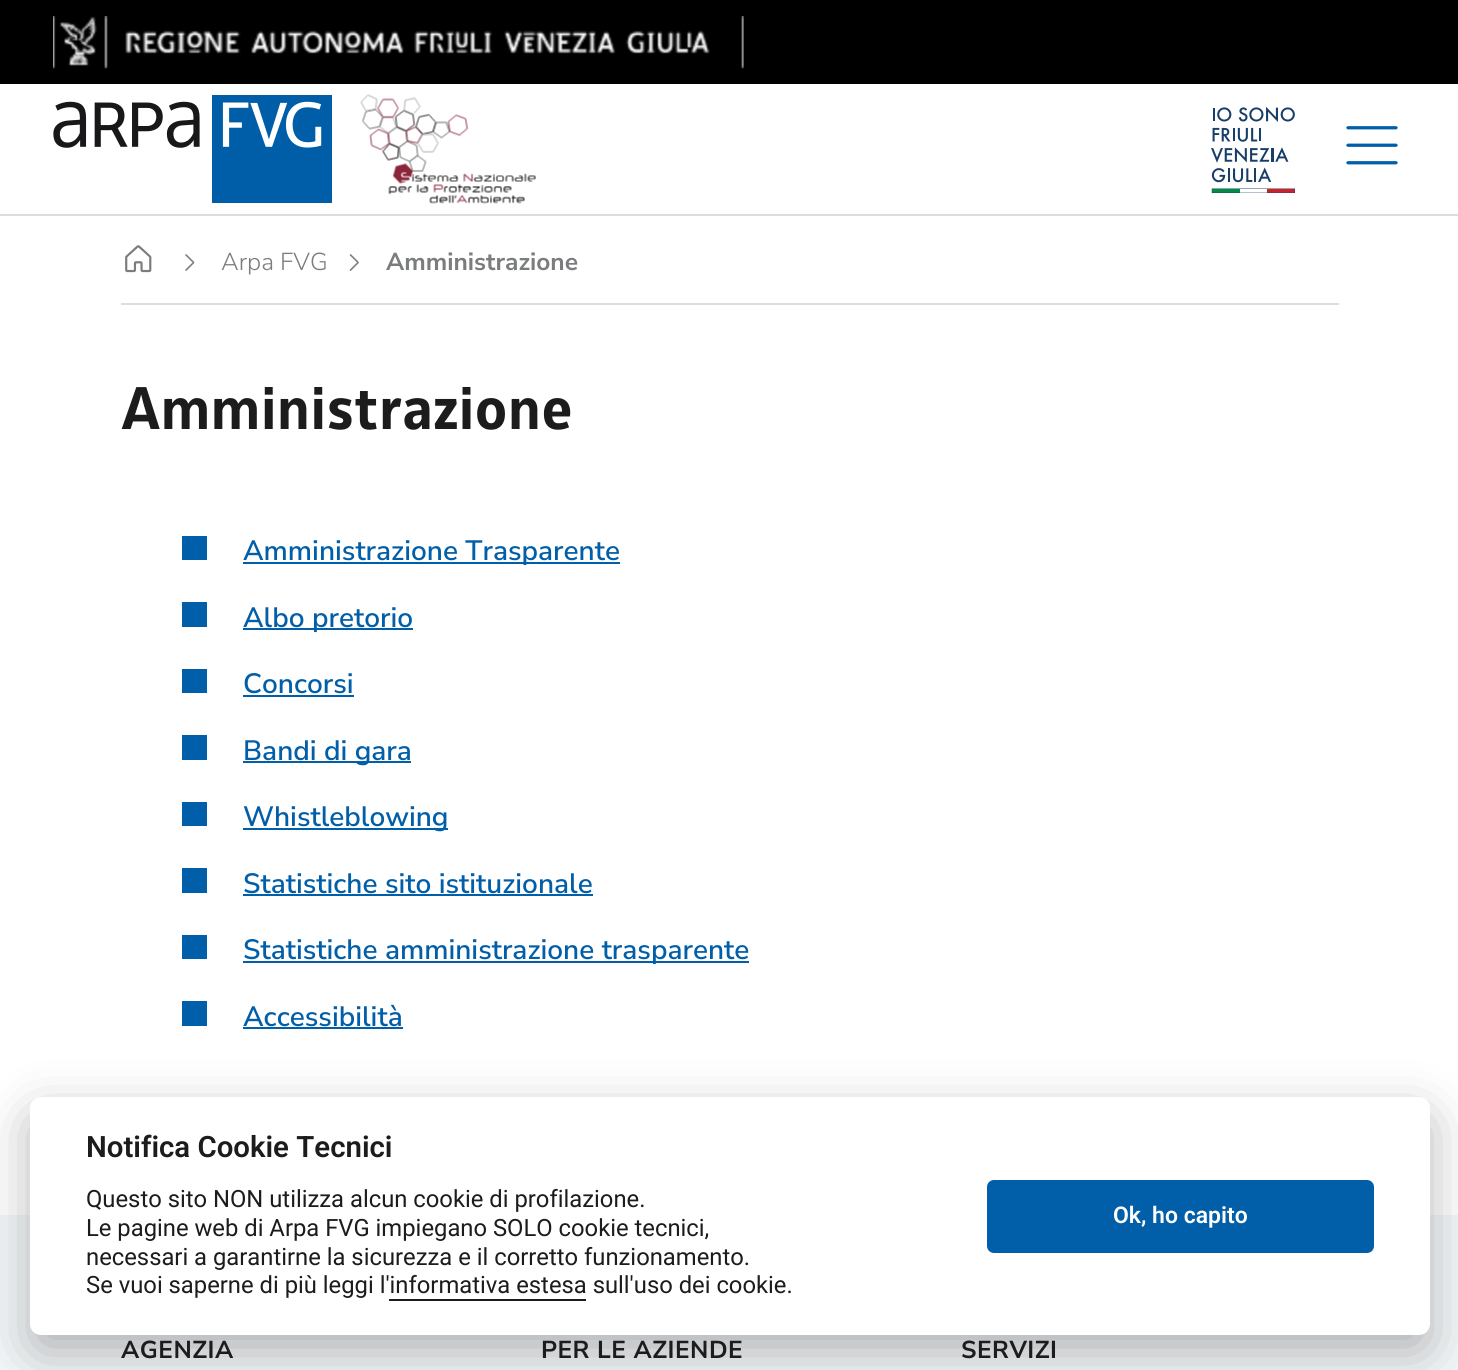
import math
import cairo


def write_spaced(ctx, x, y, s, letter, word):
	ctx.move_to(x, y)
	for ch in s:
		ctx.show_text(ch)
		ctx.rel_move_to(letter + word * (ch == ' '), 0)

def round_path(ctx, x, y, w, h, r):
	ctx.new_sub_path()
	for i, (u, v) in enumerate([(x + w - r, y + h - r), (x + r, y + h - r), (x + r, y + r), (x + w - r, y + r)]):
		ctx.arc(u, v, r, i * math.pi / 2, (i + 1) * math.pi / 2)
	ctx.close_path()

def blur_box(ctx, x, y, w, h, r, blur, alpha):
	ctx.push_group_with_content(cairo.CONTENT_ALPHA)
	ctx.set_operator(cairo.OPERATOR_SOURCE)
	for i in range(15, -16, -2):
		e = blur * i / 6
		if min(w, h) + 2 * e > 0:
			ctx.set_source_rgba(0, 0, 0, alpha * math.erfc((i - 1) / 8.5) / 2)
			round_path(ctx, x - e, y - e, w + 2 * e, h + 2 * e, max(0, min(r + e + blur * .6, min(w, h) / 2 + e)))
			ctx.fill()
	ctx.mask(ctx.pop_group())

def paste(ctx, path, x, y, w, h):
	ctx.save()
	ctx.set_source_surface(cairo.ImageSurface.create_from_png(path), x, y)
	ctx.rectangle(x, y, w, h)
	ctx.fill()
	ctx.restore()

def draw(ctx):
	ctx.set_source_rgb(1, 1, 1)
	ctx.paint()
	ctx.set_source_rgb(0, 0, 0)
	ctx.rectangle(0, 0, 1458, 84)
	ctx.fill()
	paste(ctx, 'media/1.png', 53, 16, 691, 53)
	ctx.set_source_rgb(0.867, 0.867, 0.867)
	ctx.rectangle(0, 214, 1458, 2)
	ctx.fill()
	paste(ctx, 'media/2.png', 53, 95, 279, 108)
	paste(ctx, 'media/3.png', 360, 94, 176, 110)
	paste(ctx, 'media/4.png', 1211, 107, 84, 86)
	paste(ctx, 'media/5.png', 1346, 126, 52, 39)
	ctx.rectangle(121, 303, 1218, 2)
	ctx.fill()
	paste(ctx, 'media/6.png', 125, 245, 27, 28)
	paste(ctx, 'media/7.png', 185, 254, 10, 17)
	ctx.select_font_face('Nunito Sans Light')
	ctx.set_font_size(24.5)
	ctx.set_source_rgb(0.478, 0.486, 0.494)
	ctx.move_to(221, 270)
	ctx.show_text('Arpa FVG')
	paste(ctx, 'media/8.png', 349, 254, 10, 17)
	ctx.select_font_face('Nunito Sans', cairo.FONT_SLANT_NORMAL, cairo.FONT_WEIGHT_BOLD)
	ctx.move_to(386, 270)
	ctx.show_text('Amministrazione')
	ctx.select_font_face('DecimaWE', cairo.FONT_SLANT_NORMAL, cairo.FONT_WEIGHT_BOLD)
	ctx.set_font_size(63)
	ctx.set_source_rgb(0.11, 0.11, 0.11)
	ctx.move_to(121, 429)
	ctx.show_text('Amministrazione')
	ctx.set_source_rgb(0.004, 0.369, 0.659)
	ctx.rectangle(182, 536, 25, 24)
	ctx.fill()
	ctx.rectangle(243, 562, 377, 2)
	ctx.fill()
	ctx.select_font_face('Nunito Sans SemiBold')
	ctx.set_font_size(28)
	ctx.move_to(243, 560)
	ctx.show_text('Amministrazione Trasparente')
	ctx.rectangle(182, 602, 25, 25)
	ctx.fill()
	ctx.rectangle(243, 628, 170, 2)
	ctx.fill()
	ctx.move_to(243, 627)
	ctx.show_text('Albo pretorio')
	ctx.rectangle(182, 669, 25, 24)
	ctx.fill()
	ctx.move_to(243, 693)
	ctx.show_text('Concorsi')
	ctx.rectangle(243, 695, 111, 2)
	ctx.rectangle(182, 735, 25, 25)
	ctx.rectangle(243, 761, 168, 2)
	ctx.fill()
	ctx.move_to(243, 760)
	ctx.show_text('Bandi di gara')
	ctx.rectangle(182, 802, 25, 24)
	ctx.fill()
	ctx.rectangle(243, 828, 205, 2)
	ctx.fill()
	ctx.move_to(243, 826)
	ctx.show_text('Whistleblowing')
	ctx.rectangle(182, 868, 25, 25)
	ctx.fill()
	ctx.move_to(243, 893)
	ctx.show_text('Statistiche sito istituzionale')
	ctx.rectangle(243, 894, 350, 2)
	ctx.rectangle(182, 935, 25, 24)
	ctx.rectangle(243, 961, 506, 2)
	ctx.fill()
	ctx.move_to(243, 959)
	ctx.show_text('Statistiche amministrazione trasparente')
	ctx.rectangle(182, 1001, 25, 25)
	ctx.fill()
	ctx.move_to(243, 1026)
	ctx.show_text('Accessibilità')
	ctx.rectangle(243, 1027, 160, 2)
	ctx.fill()
	ctx.set_source_rgb(0.957, 0.965, 0.973)
	ctx.rectangle(0, 1215, 1458, 155)
	ctx.fill()
	ctx.set_source_rgb(0.008, 0.008, 0.012)
	blur_box(ctx, 30, 1115, 1400, 238, 11, 26, 0.28)
	ctx.set_source_rgb(1, 1, 1)
	round_path(ctx, 30, 1097, 1400, 238, 11)
	ctx.fill()
	ctx.select_font_face('Roboto SemiBold')
	ctx.set_font_size(29.4)
	ctx.set_source_rgb(0.11, 0.11, 0.11)
	ctx.move_to(86, 1157)
	ctx.show_text('Notifica Cookie Tecnici')
	ctx.select_font_face('Roboto')
	ctx.set_font_size(23.8)
	for x, y, s in [
		(86, 1207, 'Questo sito NON utilizza alcun cookie di profilazione.'),
		(86, 1236, 'Le pagine web di Arpa FVG impiegano SOLO cookie tecnici,'),
		(86, 1265, 'necessari a garantirne la sicurezza e il corretto funzionamento.'),
		(86, 1293, 'Se vuoi saperne di più leggi l\'informativa estesa sull\'uso dei cookie.'),
	]:
		ctx.move_to(x, y)
		ctx.show_text(s)
	ctx.rectangle(389, 1299, 197, 2)
	ctx.fill()
	ctx.set_source_rgb(0.004, 0.369, 0.659)
	round_path(ctx, 987, 1180, 387, 73, 7)
	ctx.fill()
	ctx.select_font_face('Roboto SemiBold')
	ctx.set_font_size(23)
	ctx.set_source_rgb(1, 1, 1)
	ctx.move_to(1113, 1223)
	ctx.show_text('Ok, ho capito')
	ctx.select_font_face('Nunito Sans', cairo.FONT_SLANT_NORMAL, cairo.FONT_WEIGHT_BOLD)
	ctx.set_font_size(24.5)
	ctx.set_source_rgb(0.11, 0.11, 0.11)
	for x, y, s in [
		(121, 1358, 'AGENZIA'),
		(541, 1358, 'PER LE AZIENDE'),
		(961, 1358, 'SERVIZI'),
	]:
		write_spaced(ctx, x, y, s, 0.5, 0)


surface = cairo.ImageSurface(cairo.FORMAT_RGB24, 1458, 1370)
ctx = cairo.Context(surface)
options = cairo.FontOptions()
options.set_hint_metrics(cairo.HINT_METRICS_OFF)
options.set_hint_style(cairo.HINT_STYLE_NONE)
ctx.set_font_options(options)
ctx.set_miter_limit(4)
draw(ctx)
surface.write_to_png('image.png')
